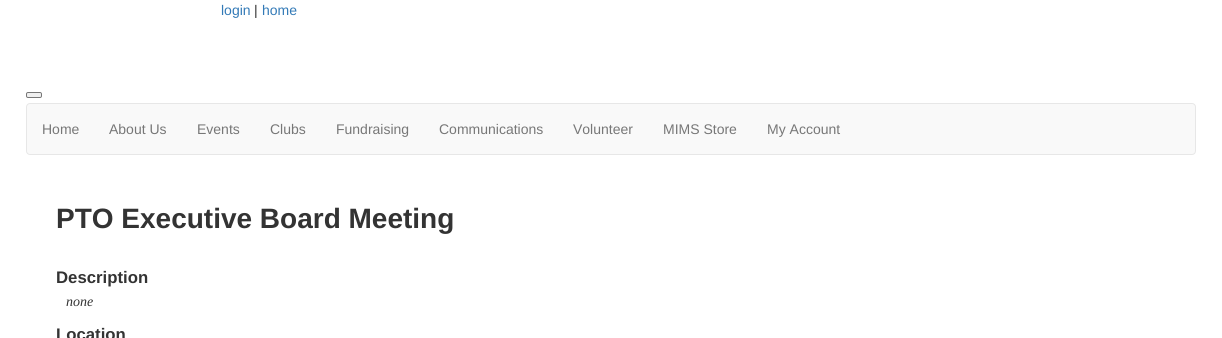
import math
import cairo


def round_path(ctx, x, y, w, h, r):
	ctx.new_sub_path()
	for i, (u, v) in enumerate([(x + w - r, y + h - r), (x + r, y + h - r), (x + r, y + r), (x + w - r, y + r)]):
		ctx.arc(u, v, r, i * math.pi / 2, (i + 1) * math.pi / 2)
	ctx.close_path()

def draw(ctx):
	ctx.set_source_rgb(1, 1, 1)
	ctx.paint()
	ctx.select_font_face('Liberation Sans')
	ctx.set_font_size(14)
	ctx.set_source_rgb(0.2, 0.478, 0.718)
	ctx.move_to(221, 15)
	ctx.show_text('login')
	ctx.set_source_rgb(0.2, 0.2, 0.2)
	ctx.move_to(254, 15)
	ctx.show_text('|')
	ctx.set_source_rgb(0.2, 0.478, 0.718)
	ctx.move_to(262, 15)
	ctx.show_text('home')
	ctx.set_source_rgb(0.937, 0.937, 0.937)
	round_path(ctx, 26.5, 92.5, 15, 5, 1.5)
	ctx.fill_preserve()
	ctx.set_source_rgb(0.463, 0.463, 0.463)
	ctx.set_line_width(1)
	ctx.stroke()
	ctx.set_source_rgb(0.973, 0.973, 0.973)
	round_path(ctx, 26.5, 103.5, 1169, 51, 3.5)
	ctx.fill_preserve()
	ctx.set_source_rgb(0.906, 0.906, 0.906)
	ctx.stroke()
	ctx.set_source_rgb(0.467, 0.467, 0.467)
	for x, y, s in [
		(42, 134, 'Home'),
		(109, 134, 'About Us'),
		(197, 134, 'Events'),
		(270, 134, 'Clubs'),
		(336, 134, 'Fundraising'),
		(439, 134, 'Communications'),
		(573, 134, 'Volunteer'),
		(663, 134, 'MIMS Store'),
		(767, 134, 'My Account'),
	]:
		ctx.move_to(x, y)
		ctx.show_text(s)
	ctx.select_font_face('Liberation Sans', cairo.FONT_SLANT_NORMAL, cairo.FONT_WEIGHT_BOLD)
	ctx.set_font_size(28)
	ctx.set_source_rgb(0.2, 0.2, 0.2)
	ctx.move_to(56, 228)
	ctx.show_text('PTO Executive Board Meeting')
	ctx.set_font_size(16.75)
	ctx.move_to(56, 283)
	ctx.show_text('Description')
	ctx.select_font_face('Liberation Serif', cairo.FONT_SLANT_ITALIC)
	ctx.set_font_size(14)
	ctx.move_to(66, 306)
	ctx.show_text('none')
	ctx.select_font_face('Liberation Sans', cairo.FONT_SLANT_NORMAL, cairo.FONT_WEIGHT_BOLD)
	ctx.set_font_size(16.75)
	ctx.move_to(56, 340)
	ctx.show_text('Location')


surface = cairo.ImageSurface(cairo.FORMAT_RGB24, 1222, 338)
ctx = cairo.Context(surface)
options = cairo.FontOptions()
options.set_hint_metrics(cairo.HINT_METRICS_OFF)
options.set_hint_style(cairo.HINT_STYLE_NONE)
ctx.set_font_options(options)
ctx.set_miter_limit(4)
draw(ctx)
surface.write_to_png('image.png')
